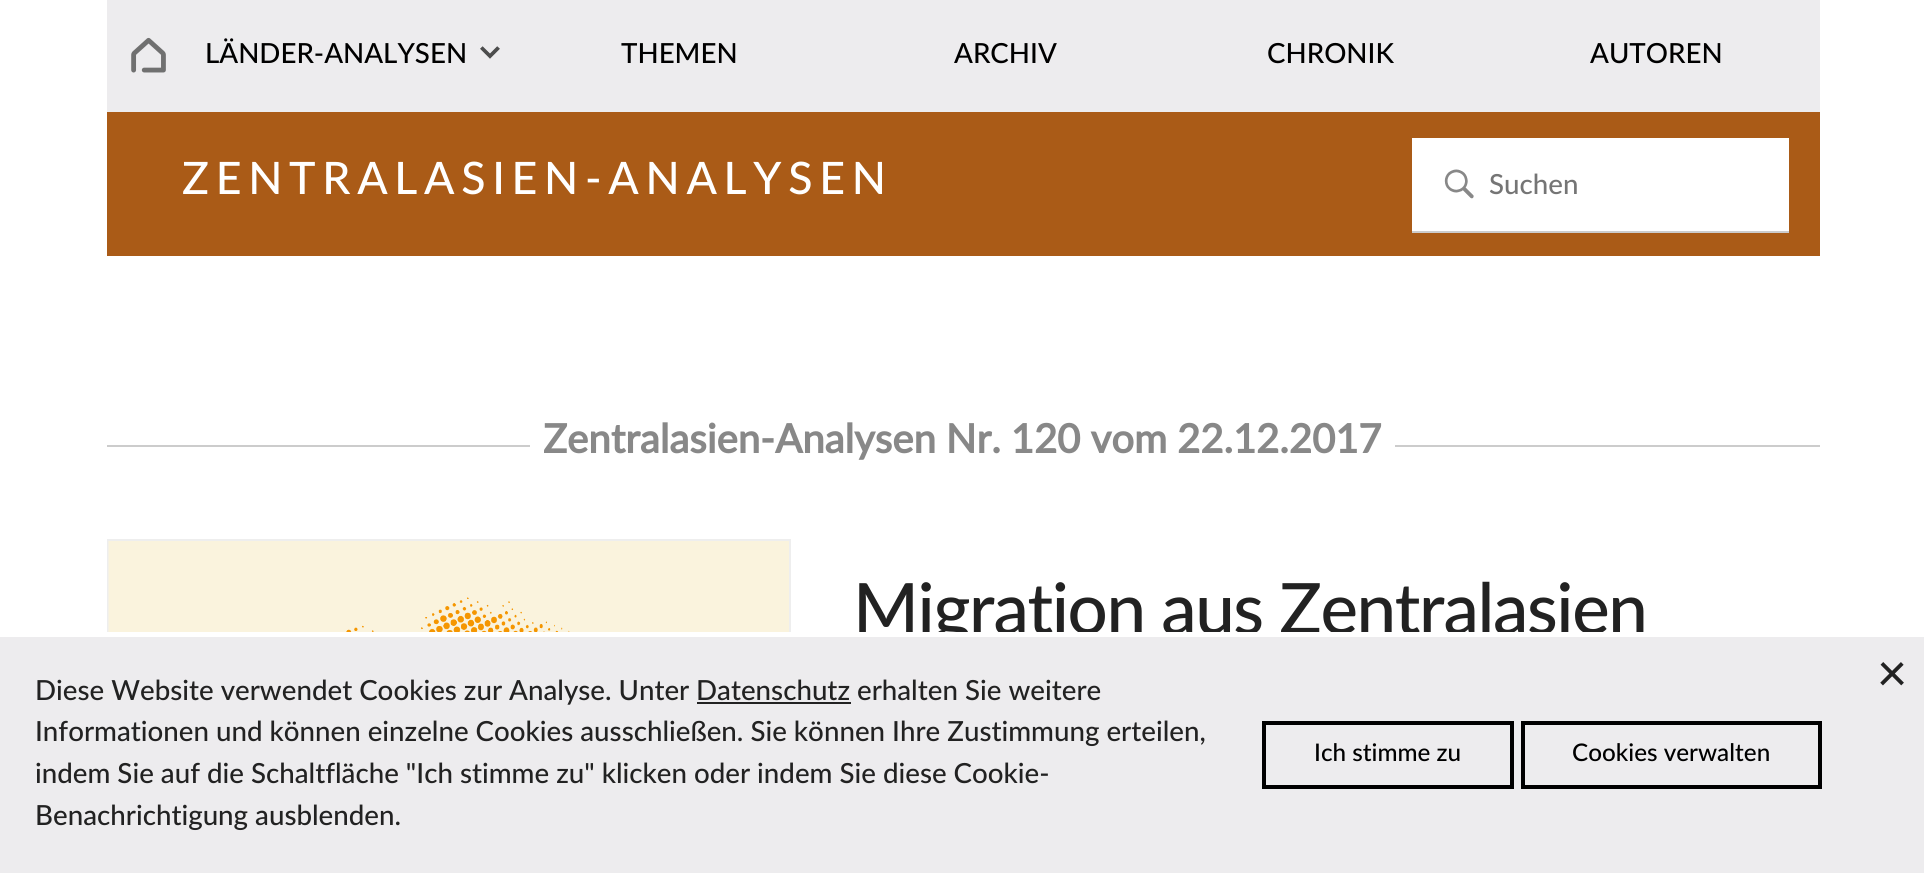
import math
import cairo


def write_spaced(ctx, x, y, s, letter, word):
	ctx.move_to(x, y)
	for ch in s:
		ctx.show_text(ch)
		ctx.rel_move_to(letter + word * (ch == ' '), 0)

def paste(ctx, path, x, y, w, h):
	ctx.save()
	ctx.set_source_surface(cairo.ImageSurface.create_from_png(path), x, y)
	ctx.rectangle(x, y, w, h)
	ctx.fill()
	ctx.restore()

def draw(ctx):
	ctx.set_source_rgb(1, 1, 1)
	ctx.paint()
	ctx.set_source_rgb(0.929, 0.922, 0.933)
	ctx.rectangle(107, 0, 1713, 112)
	ctx.fill()
	paste(ctx, 'media/1.png', 131, 37, 35, 36)
	ctx.select_font_face('Lato Medium')
	ctx.set_font_size(27.7)
	ctx.set_source_rgb(0, 0, 0)
	ctx.move_to(205, 63)
	ctx.show_text('LÄNDER-ANALYSEN')
	paste(ctx, 'media/2.png', 480, 46, 20, 13)
	for x, y, s in [
		(621, 63, 'THEMEN'),
		(954, 63, 'ARCHIV'),
		(1267, 63, 'CHRONIK'),
		(1590, 63, 'AUTOREN'),
	]:
		ctx.move_to(x, y)
		ctx.show_text(s)
	ctx.set_source_rgb(0.667, 0.357, 0.09)
	ctx.rectangle(107, 112, 1713, 144)
	ctx.fill()
	ctx.set_source_rgb(1, 1, 1)
	ctx.rectangle(1412, 138, 377, 93)
	ctx.fill()
	ctx.set_source_rgb(0.8, 0.8, 0.8)
	ctx.rectangle(1412, 231, 377, 2)
	ctx.fill()
	paste(ctx, 'media/3.png', 1444, 169, 30, 30)
	ctx.set_source_rgb(0.459, 0.459, 0.459)
	ctx.move_to(1489, 194)
	ctx.show_text('Suchen')
	ctx.set_font_size(44.7)
	ctx.set_source_rgb(1, 1, 1)
	write_spaced(ctx, 182, 194, 'ZENTRALASIEN-ANALYSEN', 6.7, 0)
	ctx.set_source_rgb(0.8, 0.8, 0.8)
	ctx.rectangle(107, 445, 1713, 2)
	ctx.fill()
	ctx.set_source_rgb(1, 1, 1)
	ctx.rectangle(530, 445, 865, 2)
	ctx.fill()
	ctx.select_font_face('Lato', cairo.FONT_SLANT_NORMAL, cairo.FONT_WEIGHT_BOLD)
	ctx.set_font_size(40)
	ctx.set_source_rgb(0.533, 0.533, 0.533)
	ctx.move_to(543, 453)
	ctx.show_text('Zentralasien-Analysen Nr. 120 vom 22.12.2017')
	ctx.rectangle(108, 540, 682, 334)
	ctx.set_source_rgb(0.933, 0.933, 0.933)
	ctx.stroke()
	paste(ctx, 'media/4.png', 108, 541, 681, 91)
	ctx.select_font_face('Lato Medium')
	ctx.set_font_size(70.8)
	ctx.set_source_rgb(0.133, 0.133, 0.133)
	write_spaced(ctx, 853, 634, 'Migration aus Zentralasien', -1.4, 0)
	ctx.set_source_rgb(0.929, 0.922, 0.933)
	ctx.rectangle(0, 637, 1924, 236)
	ctx.fill()
	ctx.set_source_rgb(1, 1, 1)
	ctx.rectangle(107, 632, 1537, 5)
	ctx.fill()
	ctx.set_font_size(52)
	ctx.set_source_rgb(0.133, 0.133, 0.133)
	ctx.move_to(1877, 691)
	ctx.show_text('×')
	ctx.set_font_size(27.7)
	ctx.move_to(35, 700)
	ctx.show_text('Diese Website verwendet Cookies zur Analyse. Unter')
	ctx.move_to(696, 700)
	ctx.show_text('Datenschutz erhalten Sie weitere')
	ctx.rectangle(697, 702, 154, 2)
	ctx.fill()
	for x, y, s in [
		(35, 741, 'Informationen und können einzelne Cookies ausschließen. Sie können Ihre Zustimmung erteilen,'),
		(35, 783, 'indem Sie auf die Schaltfläche "Ich stimme zu" klicken oder indem Sie diese Cookie-'),
		(35, 825, 'Benachrichtigung ausblenden.'),
	]:
		ctx.move_to(x, y)
		ctx.show_text(s)
	ctx.rectangle(1264, 723, 248, 64)
	ctx.set_source_rgb(0, 0, 0)
	ctx.set_line_width(4)
	ctx.stroke()
	ctx.set_font_size(24.25)
	ctx.move_to(1314, 761)
	ctx.show_text('Ich stimme zu')
	ctx.rectangle(1523, 723, 297, 64)
	ctx.stroke()
	ctx.move_to(1572, 761)
	ctx.show_text('Cookies verwalten')


surface = cairo.ImageSurface(cairo.FORMAT_RGB24, 1924, 873)
ctx = cairo.Context(surface)
options = cairo.FontOptions()
options.set_hint_metrics(cairo.HINT_METRICS_OFF)
options.set_hint_style(cairo.HINT_STYLE_NONE)
ctx.set_font_options(options)
ctx.set_miter_limit(4)
draw(ctx)
surface.write_to_png('image.png')
